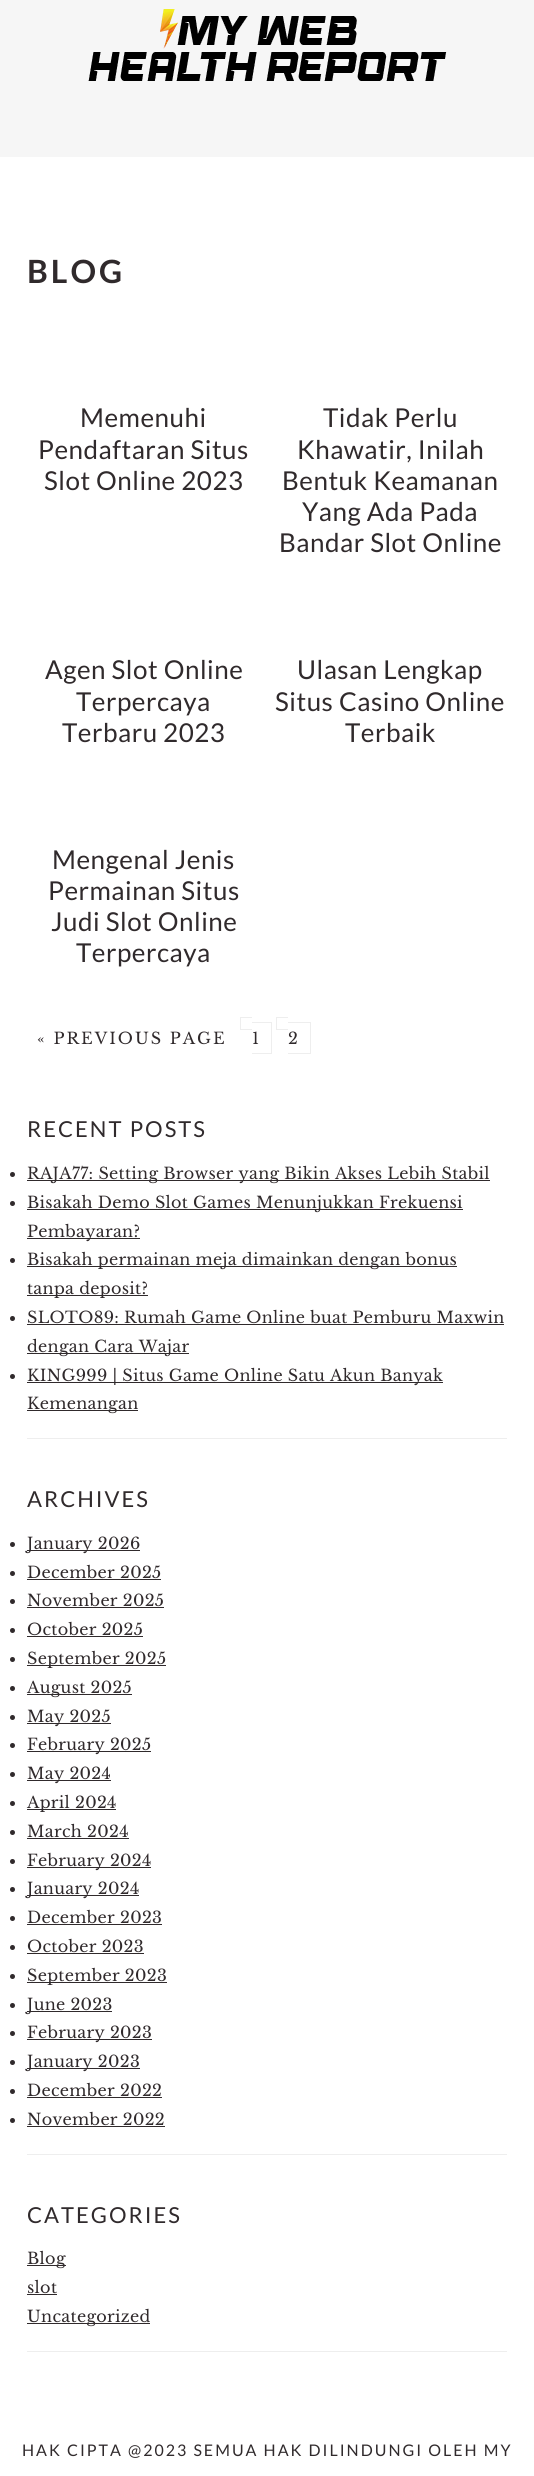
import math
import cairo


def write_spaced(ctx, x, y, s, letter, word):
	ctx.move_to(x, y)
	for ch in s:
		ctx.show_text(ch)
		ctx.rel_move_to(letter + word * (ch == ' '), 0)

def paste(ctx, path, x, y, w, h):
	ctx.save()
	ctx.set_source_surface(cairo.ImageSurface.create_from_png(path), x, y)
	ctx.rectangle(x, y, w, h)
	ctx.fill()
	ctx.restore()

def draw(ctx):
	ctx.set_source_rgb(1, 1, 1)
	ctx.paint()
	ctx.set_source_rgb(0.961, 0.961, 0.961)
	ctx.rectangle(0, 0, 534, 157)
	ctx.fill()
	paste(ctx, 'media/1.png', 88, 9, 359, 72)
	ctx.select_font_face('Lato', cairo.FONT_SLANT_NORMAL, cairo.FONT_WEIGHT_BOLD)
	ctx.set_font_size(32)
	ctx.set_source_rgb(0.188, 0.165, 0.173)
	write_spaced(ctx, 27, 283, 'BLOG', 3, 0)
	ctx.select_font_face('Lato')
	ctx.set_font_size(26)
	for x, y, s in [
		(80, 427, 'Memenuhi'),
		(38, 459, 'Pendaftaran Situs'),
		(44, 490, 'Slot Online 2023'),
		(323, 427, 'Tidak Perlu'),
		(297, 459, 'Khawatir, Inilah'),
		(282, 490, 'Bentuk Keamanan'),
		(302, 521, 'Yang Ada Pada'),
		(279, 552, 'Bandar Slot Online'),
		(45, 679, 'Agen Slot Online'),
		(76, 711, 'Terpercaya'),
		(62, 742, 'Terbaru 2023'),
		(297, 679, 'Ulasan Lengkap'),
		(275, 711, 'Situs Casino Online'),
		(345, 742, 'Terbaik'),
		(52, 869, 'Mengenal Jenis'),
		(48, 900, 'Permainan Situs'),
		(51, 931, 'Judi Slot Online'),
		(76, 962, 'Terpercaya'),
	]:
		write_spaced(ctx, x, y, s, 0.5, 0)
	ctx.select_font_face('Libre Baskerville')
	ctx.set_font_size(16)
	write_spaced(ctx, 37, 1044, '« PREVIOUS PAGE', 2, 0)
	write_spaced(ctx, 252, 1044, '1', 2, 0)
	ctx.set_source_rgb(0.933, 0.933, 0.933)
	ctx.rectangle(240, 1017, 12, 1)
	ctx.rectangle(240, 1029, 12, 1)
	ctx.rectangle(240, 1017, 1, 13)
	ctx.rectangle(252, 1022, 20, 1)
	ctx.rectangle(271, 1022, 1, 32)
	ctx.rectangle(252, 1053, 20, 1)
	ctx.fill()
	ctx.set_source_rgb(0.188, 0.165, 0.173)
	write_spaced(ctx, 288, 1044, '2', 2, 0)
	ctx.set_source_rgb(0.933, 0.933, 0.933)
	ctx.rectangle(276, 1017, 12, 1)
	ctx.rectangle(276, 1029, 12, 1)
	ctx.rectangle(276, 1017, 1, 13)
	ctx.rectangle(288, 1022, 23, 1)
	ctx.rectangle(310, 1022, 1, 32)
	ctx.rectangle(288, 1053, 23, 1)
	ctx.rectangle(27, 1438, 480, 1)
	ctx.fill()
	ctx.select_font_face('Lato')
	ctx.set_font_size(22)
	ctx.set_source_rgb(0.188, 0.165, 0.173)
	write_spaced(ctx, 27, 1137, 'RECENT POSTS', 2, 0)
	ctx.new_path()
	ctx.arc(12.5, 1174.5, 2.5, 0, 2 * math.pi)
	ctx.fill()
	ctx.rectangle(27, 1180, 463, 1)
	ctx.fill()
	ctx.select_font_face('Libre Baskerville')
	ctx.set_font_size(16)
	write_spaced(ctx, 27, 1179, 'RAJA77: Setting Browser yang Bikin Akses Lebih Stabil', 0.32, 0)
	ctx.new_path()
	ctx.arc(12.5, 1203.5, 2.5, 0, 2 * math.pi)
	ctx.fill()
	ctx.rectangle(27, 1209, 436, 1)
	ctx.fill()
	write_spaced(ctx, 27, 1208, 'Bisakah Demo Slot Games Menunjukkan Frekuensi', 0.32, 0)
	ctx.rectangle(27, 1238, 113, 1)
	ctx.fill()
	write_spaced(ctx, 27, 1237, 'Pembayaran?', 0.32, 0)
	ctx.new_path()
	ctx.arc(12.5, 1260.5, 2.5, 0, 2 * math.pi)
	ctx.fill()
	ctx.rectangle(27, 1266, 430, 1)
	ctx.fill()
	write_spaced(ctx, 27, 1265, 'Bisakah permainan meja dimainkan dengan bonus', 0.32, 0)
	ctx.rectangle(27, 1295, 121, 1)
	ctx.fill()
	write_spaced(ctx, 27, 1294, 'tanpa deposit?', 0.32, 0)
	ctx.new_path()
	ctx.arc(12.5, 1318.5, 2.5, 0, 2 * math.pi)
	ctx.fill()
	write_spaced(ctx, 27, 1323, 'SLOTO89: Rumah Game Online buat Pemburu Maxwin', 0.32, 0)
	ctx.rectangle(27, 1324, 477, 1)
	ctx.fill()
	ctx.rectangle(27, 1353, 162, 1)
	ctx.fill()
	write_spaced(ctx, 27, 1352, 'dengan Cara Wajar', 0.32, 0)
	ctx.new_path()
	ctx.arc(12.5, 1376.5, 2.5, 0, 2 * math.pi)
	ctx.fill()
	ctx.rectangle(27, 1382, 416, 1)
	ctx.fill()
	write_spaced(ctx, 27, 1381, 'KING999 | Situs Game Online Satu Akun Banyak', 0.32, 0)
	ctx.rectangle(27, 1410, 111, 1)
	ctx.fill()
	write_spaced(ctx, 27, 1409, 'Kemenangan', 0.32, 0)
	ctx.set_source_rgb(0.933, 0.933, 0.933)
	ctx.rectangle(27, 2154, 480, 1)
	ctx.fill()
	ctx.select_font_face('Lato')
	ctx.set_font_size(22)
	ctx.set_source_rgb(0.188, 0.165, 0.173)
	write_spaced(ctx, 27, 1507, 'ARCHIVES', 2, 0)
	ctx.new_path()
	ctx.arc(12.5, 1544.5, 2.5, 0, 2 * math.pi)
	ctx.fill()
	ctx.rectangle(27, 1550, 113, 1)
	ctx.fill()
	ctx.select_font_face('Libre Baskerville')
	ctx.set_font_size(16)
	write_spaced(ctx, 27, 1549, 'January 2026', 0.32, 0)
	ctx.new_path()
	ctx.arc(12.5, 1573.5, 2.5, 0, 2 * math.pi)
	ctx.fill()
	write_spaced(ctx, 27, 1578, 'December 2025', 0.32, 0)
	ctx.rectangle(27, 1579, 134, 1)
	ctx.fill()
	ctx.arc(12.5, 1601.5, 2.5, 0, 2 * math.pi)
	ctx.fill()
	write_spaced(ctx, 27, 1606, 'November 2025', 0.32, 0)
	ctx.rectangle(27, 1607, 137, 1)
	ctx.fill()
	ctx.arc(12.5, 1630.5, 2.5, 0, 2 * math.pi)
	ctx.fill()
	write_spaced(ctx, 27, 1635, 'October 2025', 0.32, 0)
	ctx.rectangle(27, 1636, 116, 1)
	ctx.fill()
	ctx.arc(12.5, 1659.5, 2.5, 0, 2 * math.pi)
	ctx.fill()
	ctx.rectangle(27, 1665, 139, 1)
	ctx.fill()
	write_spaced(ctx, 27, 1664, 'September 2025', 0.32, 0)
	ctx.new_path()
	ctx.arc(12.5, 1688.5, 2.5, 0, 2 * math.pi)
	ctx.fill()
	ctx.rectangle(27, 1694, 105, 1)
	ctx.fill()
	write_spaced(ctx, 27, 1693, 'August 2025', 0.32, 0)
	ctx.new_path()
	ctx.arc(12.5, 1717.5, 2.5, 0, 2 * math.pi)
	ctx.fill()
	ctx.rectangle(27, 1723, 84, 1)
	ctx.fill()
	write_spaced(ctx, 27, 1722, 'May 2025', 0.32, 0)
	ctx.new_path()
	ctx.arc(12.5, 1745.5, 2.5, 0, 2 * math.pi)
	ctx.fill()
	ctx.rectangle(27, 1751, 124, 1)
	ctx.fill()
	write_spaced(ctx, 27, 1750, 'February 2025', 0.32, 0)
	ctx.new_path()
	ctx.arc(12.5, 1774.5, 2.5, 0, 2 * math.pi)
	ctx.fill()
	ctx.rectangle(27, 1780, 84, 1)
	ctx.fill()
	write_spaced(ctx, 27, 1779, 'May 2024', 0.32, 0)
	ctx.new_path()
	ctx.arc(12.5, 1803.5, 2.5, 0, 2 * math.pi)
	ctx.fill()
	ctx.rectangle(27, 1809, 89, 1)
	ctx.fill()
	write_spaced(ctx, 27, 1808, 'April 2024', 0.32, 0)
	ctx.new_path()
	ctx.arc(12.5, 1832.5, 2.5, 0, 2 * math.pi)
	ctx.fill()
	write_spaced(ctx, 27, 1837, 'March 2024', 0.32, 0)
	ctx.rectangle(27, 1838, 102, 1)
	ctx.fill()
	ctx.arc(12.5, 1861.5, 2.5, 0, 2 * math.pi)
	ctx.fill()
	ctx.rectangle(27, 1867, 124, 1)
	ctx.fill()
	write_spaced(ctx, 27, 1866, 'February 2024', 0.32, 0)
	ctx.new_path()
	ctx.arc(12.5, 1889.5, 2.5, 0, 2 * math.pi)
	ctx.fill()
	ctx.rectangle(27, 1895, 112, 1)
	ctx.fill()
	write_spaced(ctx, 27, 1894, 'January 2024', 0.32, 0)
	ctx.new_path()
	ctx.arc(12.5, 1918.5, 2.5, 0, 2 * math.pi)
	ctx.fill()
	write_spaced(ctx, 27, 1923, 'December 2023', 0.32, 0)
	ctx.rectangle(27, 1924, 135, 1)
	ctx.fill()
	ctx.arc(12.5, 1947.5, 2.5, 0, 2 * math.pi)
	ctx.fill()
	write_spaced(ctx, 27, 1952, 'October 2023', 0.32, 0)
	ctx.rectangle(27, 1953, 117, 1)
	ctx.fill()
	ctx.arc(12.5, 1976.5, 2.5, 0, 2 * math.pi)
	ctx.fill()
	ctx.rectangle(27, 1982, 140, 1)
	ctx.fill()
	write_spaced(ctx, 27, 1981, 'September 2023', 0.32, 0)
	ctx.new_path()
	ctx.arc(12.5, 2005.5, 2.5, 0, 2 * math.pi)
	ctx.fill()
	ctx.rectangle(27, 2011, 85, 1)
	ctx.fill()
	write_spaced(ctx, 27, 2010, 'June 2023', 0.32, 0)
	ctx.new_path()
	ctx.arc(12.5, 2033.5, 2.5, 0, 2 * math.pi)
	ctx.fill()
	ctx.rectangle(27, 2039, 125, 1)
	ctx.fill()
	write_spaced(ctx, 27, 2038, 'February 2023', 0.32, 0)
	ctx.new_path()
	ctx.arc(12.5, 2062.5, 2.5, 0, 2 * math.pi)
	ctx.fill()
	ctx.rectangle(27, 2068, 113, 1)
	ctx.fill()
	write_spaced(ctx, 27, 2067, 'January 2023', 0.32, 0)
	ctx.new_path()
	ctx.arc(12.5, 2091.5, 2.5, 0, 2 * math.pi)
	ctx.fill()
	write_spaced(ctx, 27, 2096, 'December 2022', 0.32, 0)
	ctx.rectangle(27, 2097, 135, 1)
	ctx.fill()
	ctx.arc(12.5, 2120.5, 2.5, 0, 2 * math.pi)
	ctx.fill()
	write_spaced(ctx, 27, 2125, 'November 2022', 0.32, 0)
	ctx.rectangle(27, 2126, 138, 1)
	ctx.fill()
	ctx.set_source_rgb(0.933, 0.933, 0.933)
	ctx.rectangle(27, 2351, 480, 1)
	ctx.fill()
	ctx.select_font_face('Lato')
	ctx.set_font_size(22)
	ctx.set_source_rgb(0.188, 0.165, 0.173)
	write_spaced(ctx, 27, 2223, 'CATEGORIES', 2, 0)
	ctx.rectangle(27, 2265, 39, 1)
	ctx.fill()
	ctx.select_font_face('Libre Baskerville')
	ctx.set_font_size(16)
	write_spaced(ctx, 27, 2264, 'Blog', 0.32, 0)
	write_spaced(ctx, 27, 2293, 'slot', 0.32, 0)
	ctx.rectangle(27, 2294, 30, 1)
	ctx.fill()
	ctx.rectangle(27, 2323, 123, 1)
	ctx.fill()
	write_spaced(ctx, 27, 2322, 'Uncategorized', 0.32, 0)
	ctx.select_font_face('Lato')
	write_spaced(ctx, 22, 2456, 'HAK CIPTA @2023 SEMUA HAK DILINDUNGI OLEH MY', 2, 0)


surface = cairo.ImageSurface(cairo.FORMAT_RGB24, 534, 2476)
ctx = cairo.Context(surface)
options = cairo.FontOptions()
options.set_hint_metrics(cairo.HINT_METRICS_OFF)
options.set_hint_style(cairo.HINT_STYLE_NONE)
ctx.set_font_options(options)
ctx.set_miter_limit(4)
draw(ctx)
surface.write_to_png('image.png')
